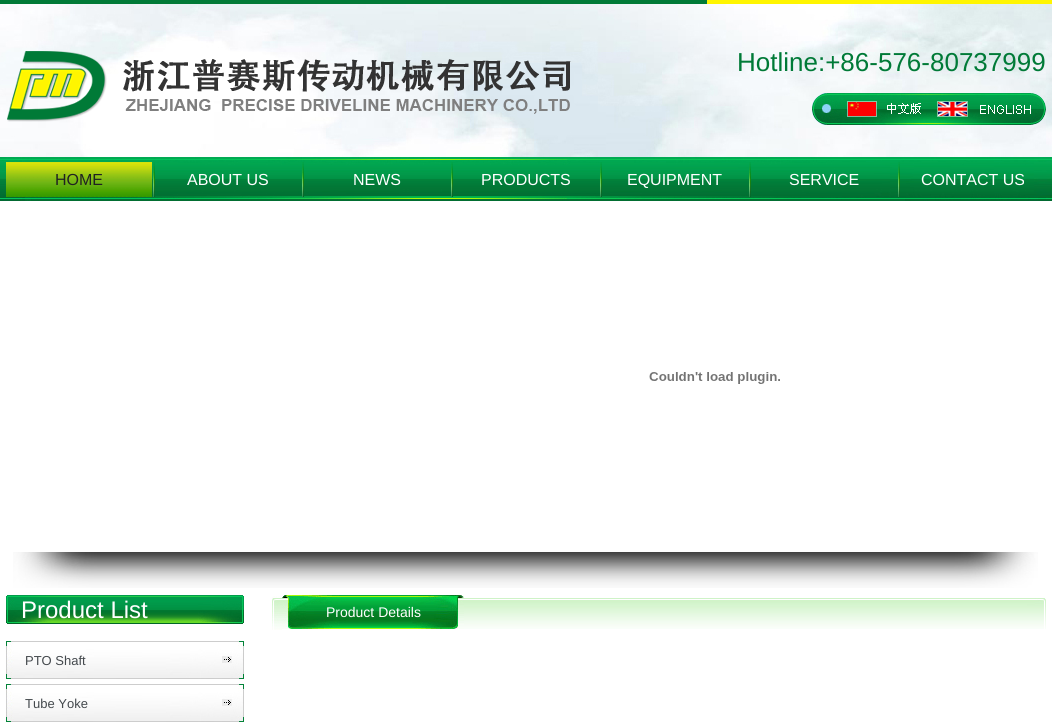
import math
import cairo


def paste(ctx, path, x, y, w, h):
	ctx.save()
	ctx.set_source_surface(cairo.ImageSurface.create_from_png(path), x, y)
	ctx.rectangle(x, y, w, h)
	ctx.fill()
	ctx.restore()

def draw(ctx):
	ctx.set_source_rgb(1, 1, 1)
	ctx.paint()
	paste(ctx, 'media/1.png', 0, 0, 1052, 157)
	paste(ctx, 'media/2.png', 7, 51, 100, 71)
	paste(ctx, 'media/3.png', 123, 59, 448, 55)
	ctx.select_font_face('Liberation Sans')
	ctx.set_font_size(26)
	ctx.set_source_rgb(0, 0.478, 0.216)
	ctx.move_to(737, 71)
	ctx.show_text('Hotline:+86-576-80737999')
	paste(ctx, 'media/4.png', 812, 93, 119, 32)
	paste(ctx, 'media/5.png', 931, 93, 115, 32)
	paste(ctx, 'media/6.png', 0, 157, 1052, 44)
	paste(ctx, 'media/7.png', 6, 162, 146, 35)
	ctx.set_font_size(16)
	ctx.set_source_rgb(0.125, 0.129, 0.129)
	ctx.move_to(55, 185)
	ctx.show_text('HOME')
	paste(ctx, 'media/8.png', 153, 162, 2, 35)
	ctx.set_source_rgb(1, 1, 1)
	ctx.move_to(187, 185)
	ctx.show_text('ABOUT US')
	paste(ctx, 'media/8.png', 302, 162, 2, 35)
	ctx.move_to(353, 185)
	ctx.show_text('NEWS')
	paste(ctx, 'media/8.png', 451, 162, 2, 35)
	ctx.move_to(481, 185)
	ctx.show_text('PRODUCTS')
	paste(ctx, 'media/8.png', 600, 162, 2, 35)
	ctx.move_to(627, 185)
	ctx.show_text('EQUIPMENT')
	paste(ctx, 'media/8.png', 749, 162, 2, 35)
	ctx.move_to(789, 185)
	ctx.show_text('SERVICE')
	paste(ctx, 'media/8.png', 898, 162, 2, 35)
	ctx.move_to(921, 185)
	ctx.show_text('CONTACT US')
	paste(ctx, 'media/9.png', 649, 372, 131, 12)
	paste(ctx, 'media/10.png', 13, 552, 1025, 36)
	paste(ctx, 'media/11.png', 6, 595, 238, 29)
	ctx.set_font_size(24)
	ctx.move_to(21, 618)
	ctx.show_text('Product List')
	paste(ctx, 'media/12.png', 6, 641, 238, 38)
	ctx.set_font_size(13)
	ctx.set_source_rgb(0.267, 0.286, 0.302)
	ctx.move_to(25, 665)
	ctx.show_text('PTO Shaft')
	paste(ctx, 'media/12.png', 6, 684, 238, 38)
	ctx.move_to(25, 708)
	ctx.show_text('Tube Yoke')
	paste(ctx, 'media/13.png', 272, 596, 10, 34)
	paste(ctx, 'media/14.png', 464, 598, 563, 31)
	paste(ctx, 'media/15.png', 282, 595, 182, 34)
	ctx.set_font_size(14)
	ctx.set_source_rgb(1, 1, 1)
	ctx.move_to(326, 617)
	ctx.show_text('Product Details')
	paste(ctx, 'media/16.png', 1027, 598, 19, 31)


surface = cairo.ImageSurface(cairo.FORMAT_RGB24, 1052, 727)
ctx = cairo.Context(surface)
options = cairo.FontOptions()
options.set_hint_metrics(cairo.HINT_METRICS_OFF)
options.set_hint_style(cairo.HINT_STYLE_NONE)
ctx.set_font_options(options)
ctx.set_miter_limit(4)
draw(ctx)
surface.write_to_png('image.png')
